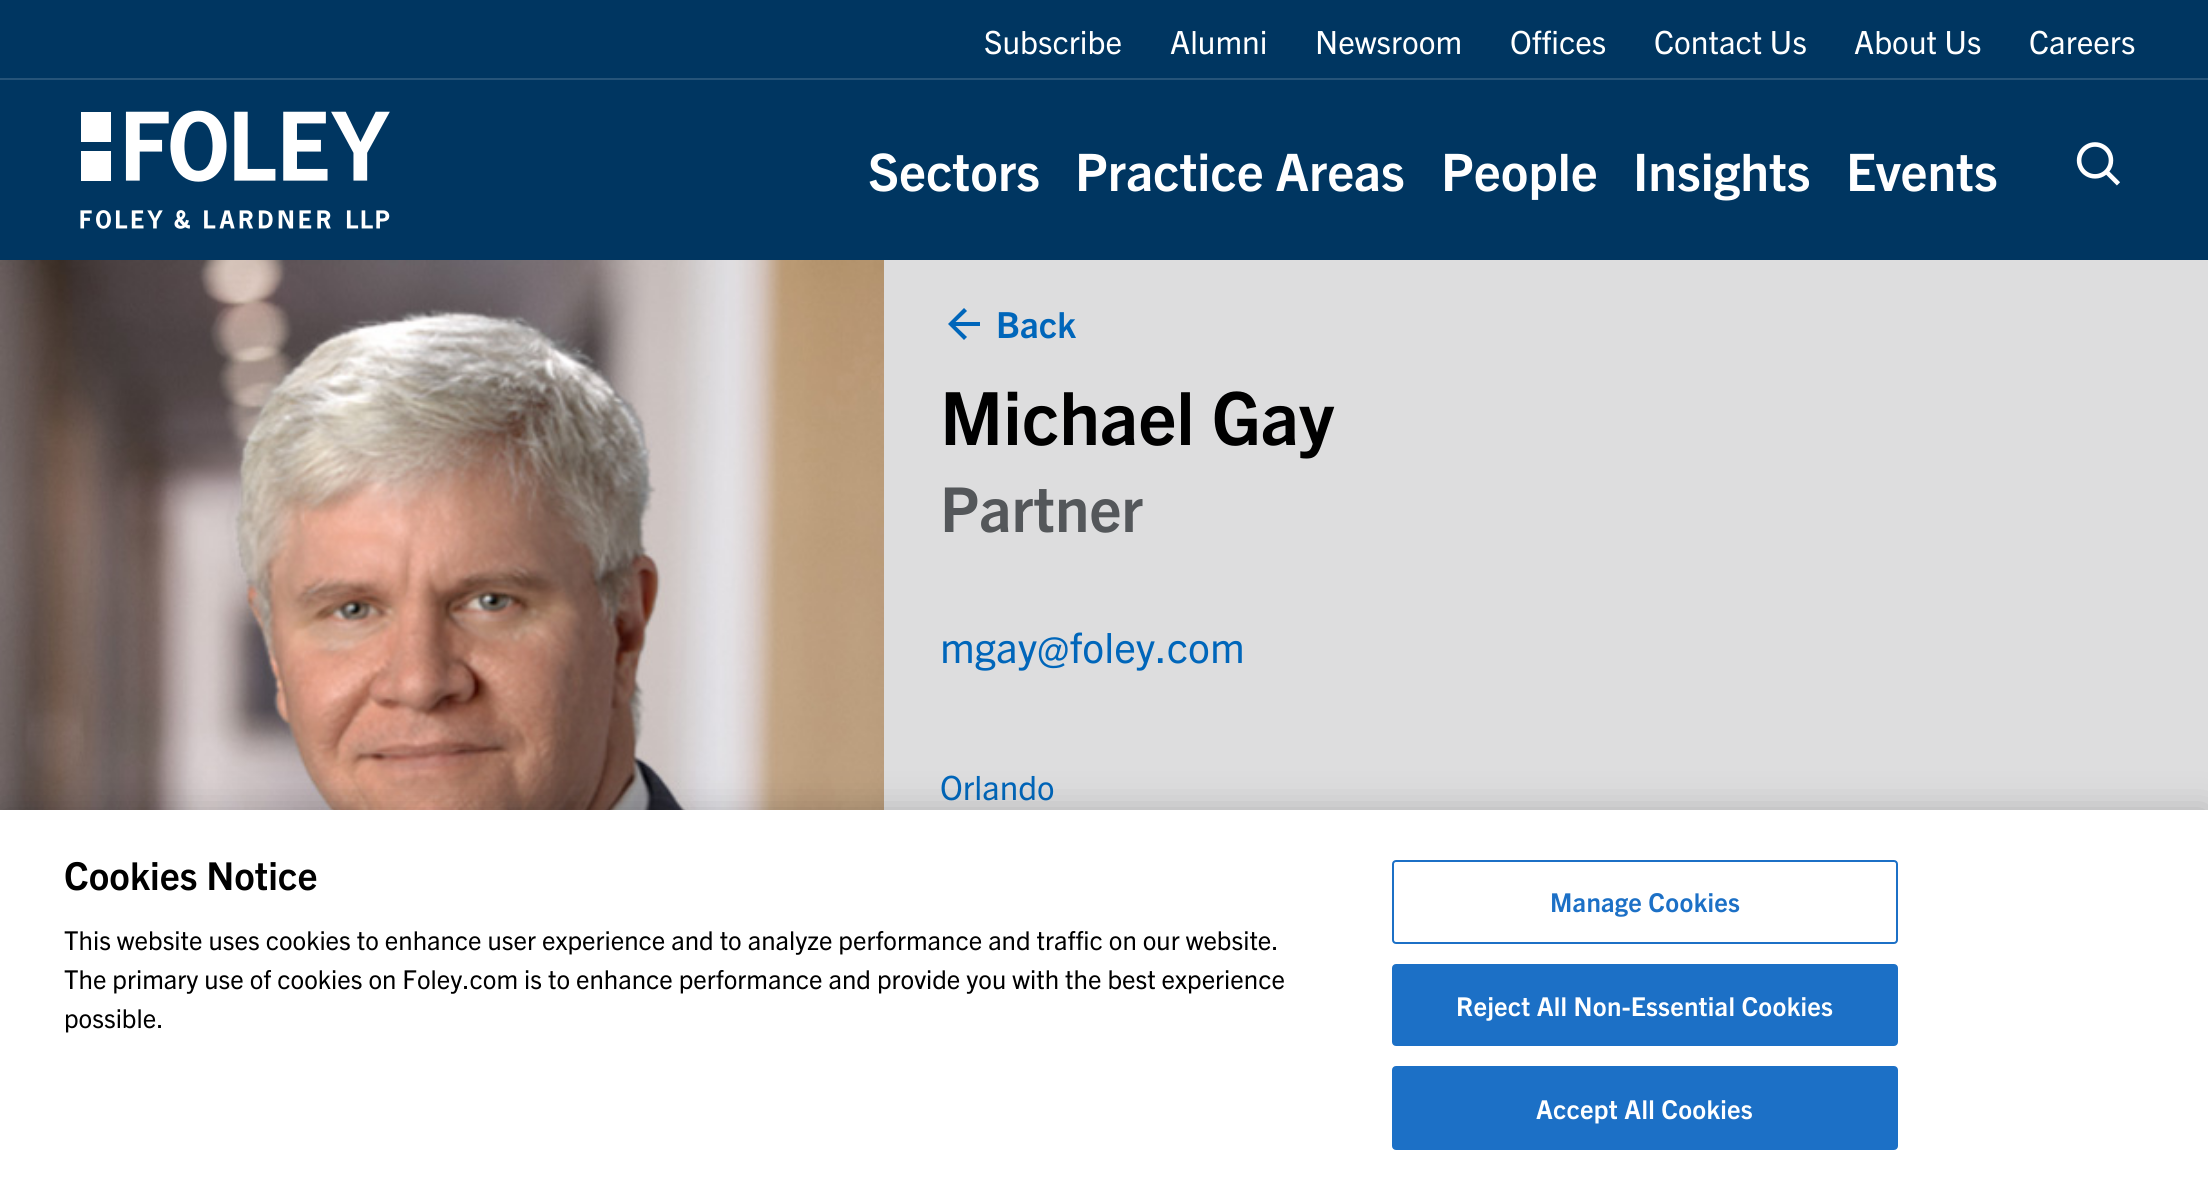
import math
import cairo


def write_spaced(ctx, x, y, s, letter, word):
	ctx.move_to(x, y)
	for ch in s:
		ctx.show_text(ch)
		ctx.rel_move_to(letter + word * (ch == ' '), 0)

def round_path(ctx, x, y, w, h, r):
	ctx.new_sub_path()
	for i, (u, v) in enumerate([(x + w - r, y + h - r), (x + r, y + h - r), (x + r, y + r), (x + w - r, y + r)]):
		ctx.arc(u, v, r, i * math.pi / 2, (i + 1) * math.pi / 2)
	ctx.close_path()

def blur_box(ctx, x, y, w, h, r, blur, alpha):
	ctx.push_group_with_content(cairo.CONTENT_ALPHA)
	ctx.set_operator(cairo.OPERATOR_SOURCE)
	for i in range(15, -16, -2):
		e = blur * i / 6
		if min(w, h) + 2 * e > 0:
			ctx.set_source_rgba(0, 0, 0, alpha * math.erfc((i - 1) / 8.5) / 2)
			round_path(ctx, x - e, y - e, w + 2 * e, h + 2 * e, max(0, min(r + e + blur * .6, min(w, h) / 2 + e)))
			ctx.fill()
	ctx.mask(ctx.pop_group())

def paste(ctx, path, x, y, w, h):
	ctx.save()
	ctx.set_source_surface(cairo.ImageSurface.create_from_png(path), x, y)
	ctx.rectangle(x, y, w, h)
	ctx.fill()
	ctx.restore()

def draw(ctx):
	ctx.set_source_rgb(0.867, 0.867, 0.871)
	ctx.paint()
	ctx.set_source_rgb(0, 0.212, 0.38)
	ctx.rectangle(0, 0, 2208, 260)
	ctx.fill()
	ctx.select_font_face('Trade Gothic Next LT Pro')
	ctx.set_font_size(32)
	ctx.set_source_rgb(1, 1, 1)
	for x, y, s in [
		(984, 54, 'Subscribe'),
		(1170, 54, 'Alumni'),
		(1315, 54, 'Newsroom'),
		(1510, 54, 'Offices'),
		(1654, 54, 'Contact Us'),
		(1854, 54, 'About Us'),
		(2029, 54, 'Careers'),
	]:
		ctx.move_to(x, y)
		ctx.show_text(s)
	ctx.set_source_rgb(0.149, 0.329, 0.475)
	ctx.rectangle(0, 78, 2208, 2)
	ctx.fill()
	paste(ctx, 'media/1.png', 80, 110, 310, 119)
	ctx.select_font_face('Trade Gothic Next LT Pro', cairo.FONT_SLANT_NORMAL, cairo.FONT_WEIGHT_BOLD)
	ctx.set_font_size(51.75)
	ctx.set_source_rgb(1, 1, 1)
	for x, y, s in [
		(868, 191, 'Sectors'),
		(1075, 191, 'Practice Areas'),
		(1441, 191, 'People'),
		(1633, 191, 'Insights'),
		(1846, 191, 'Events'),
	]:
		ctx.move_to(x, y)
		ctx.show_text(s)
	paste(ctx, 'media/2.png', 2076, 142, 44, 44)
	paste(ctx, 'media/3.png', 0, 260, 884, 550)
	ctx.set_source_rgb(0, 0.4, 0.729)
	ctx.new_path()
	ctx.move_to(980, 322)
	ctx.line_to(955.5, 322)
	ctx.line_to(967, 311)
	ctx.line_to(964, 308)
	ctx.line_to(948, 324)
	ctx.line_to(964, 340)
	ctx.line_to(967, 337)
	ctx.line_to(955.5, 326)
	ctx.line_to(980, 326)
	ctx.close_path()
	ctx.fill()
	ctx.set_font_size(36)
	ctx.move_to(996, 338)
	ctx.show_text('Back')
	ctx.set_font_size(73.5)
	ctx.set_source_rgb(0, 0, 0)
	ctx.move_to(940, 445)
	ctx.show_text('Michael Gay')
	ctx.set_font_size(62)
	ctx.set_source_rgb(0.329, 0.341, 0.353)
	ctx.move_to(940, 532)
	ctx.show_text('Partner')
	ctx.select_font_face('Trade Gothic Next LT Pro')
	ctx.set_font_size(41.75)
	ctx.set_source_rgb(0, 0.4, 0.729)
	ctx.move_to(940, 663)
	ctx.show_text('mgay@foley.com')
	ctx.set_font_size(33.5)
	ctx.move_to(940, 800)
	ctx.show_text('Orlando')
	ctx.set_source_rgb(0, 0, 0)
	blur_box(ctx, 0, 810, 2208, 380, 0, 18, 0.2)
	ctx.set_source_rgb(1, 1, 1)
	ctx.rectangle(0, 810, 2208, 380)
	ctx.fill()
	ctx.select_font_face('Trade Gothic Next LT Pro', cairo.FONT_SLANT_NORMAL, cairo.FONT_WEIGHT_BOLD)
	ctx.set_font_size(38.5)
	ctx.set_source_rgb(0, 0, 0)
	ctx.move_to(64, 890)
	ctx.show_text('Cookies Notice')
	ctx.select_font_face('Trade Gothic Next LT Pro')
	ctx.set_font_size(26)
	for x, y, s in [
		(64, 950, 'This website uses cookies to enhance user experience and to analyze performance and traffic on our website.'),
		(64, 989, 'The primary use of cookies on Foley.com is to enhance performance and provide you with the best experience'),
		(64, 1028, 'possible.'),
	]:
		ctx.move_to(x, y)
		ctx.show_text(s)
	round_path(ctx, 1393, 861, 504, 82, 3)
	ctx.set_source_rgb(0.11, 0.439, 0.776)
	ctx.stroke()
	ctx.select_font_face('Trade Gothic Next LT Pro', cairo.FONT_SLANT_NORMAL, cairo.FONT_WEIGHT_BOLD)
	write_spaced(ctx, 1550, 912, 'Manage Cookies', 0.25, 0)
	round_path(ctx, 1393, 965, 504, 80, 3)
	ctx.fill_preserve()
	ctx.stroke()
	ctx.set_source_rgb(1, 1, 1)
	write_spaced(ctx, 1456, 1016, 'Reject All Non-Essential Cookies', 0.25, 0)
	ctx.set_source_rgb(0.11, 0.439, 0.776)
	round_path(ctx, 1393, 1067, 504, 82, 3)
	ctx.fill_preserve()
	ctx.stroke()
	ctx.set_source_rgb(1, 1, 1)
	write_spaced(ctx, 1536, 1119, 'Accept All Cookies', 0.25, 0)


surface = cairo.ImageSurface(cairo.FORMAT_RGB24, 2208, 1190)
ctx = cairo.Context(surface)
options = cairo.FontOptions()
options.set_hint_metrics(cairo.HINT_METRICS_OFF)
options.set_hint_style(cairo.HINT_STYLE_NONE)
ctx.set_font_options(options)
ctx.set_miter_limit(4)
draw(ctx)
surface.write_to_png('image.png')
